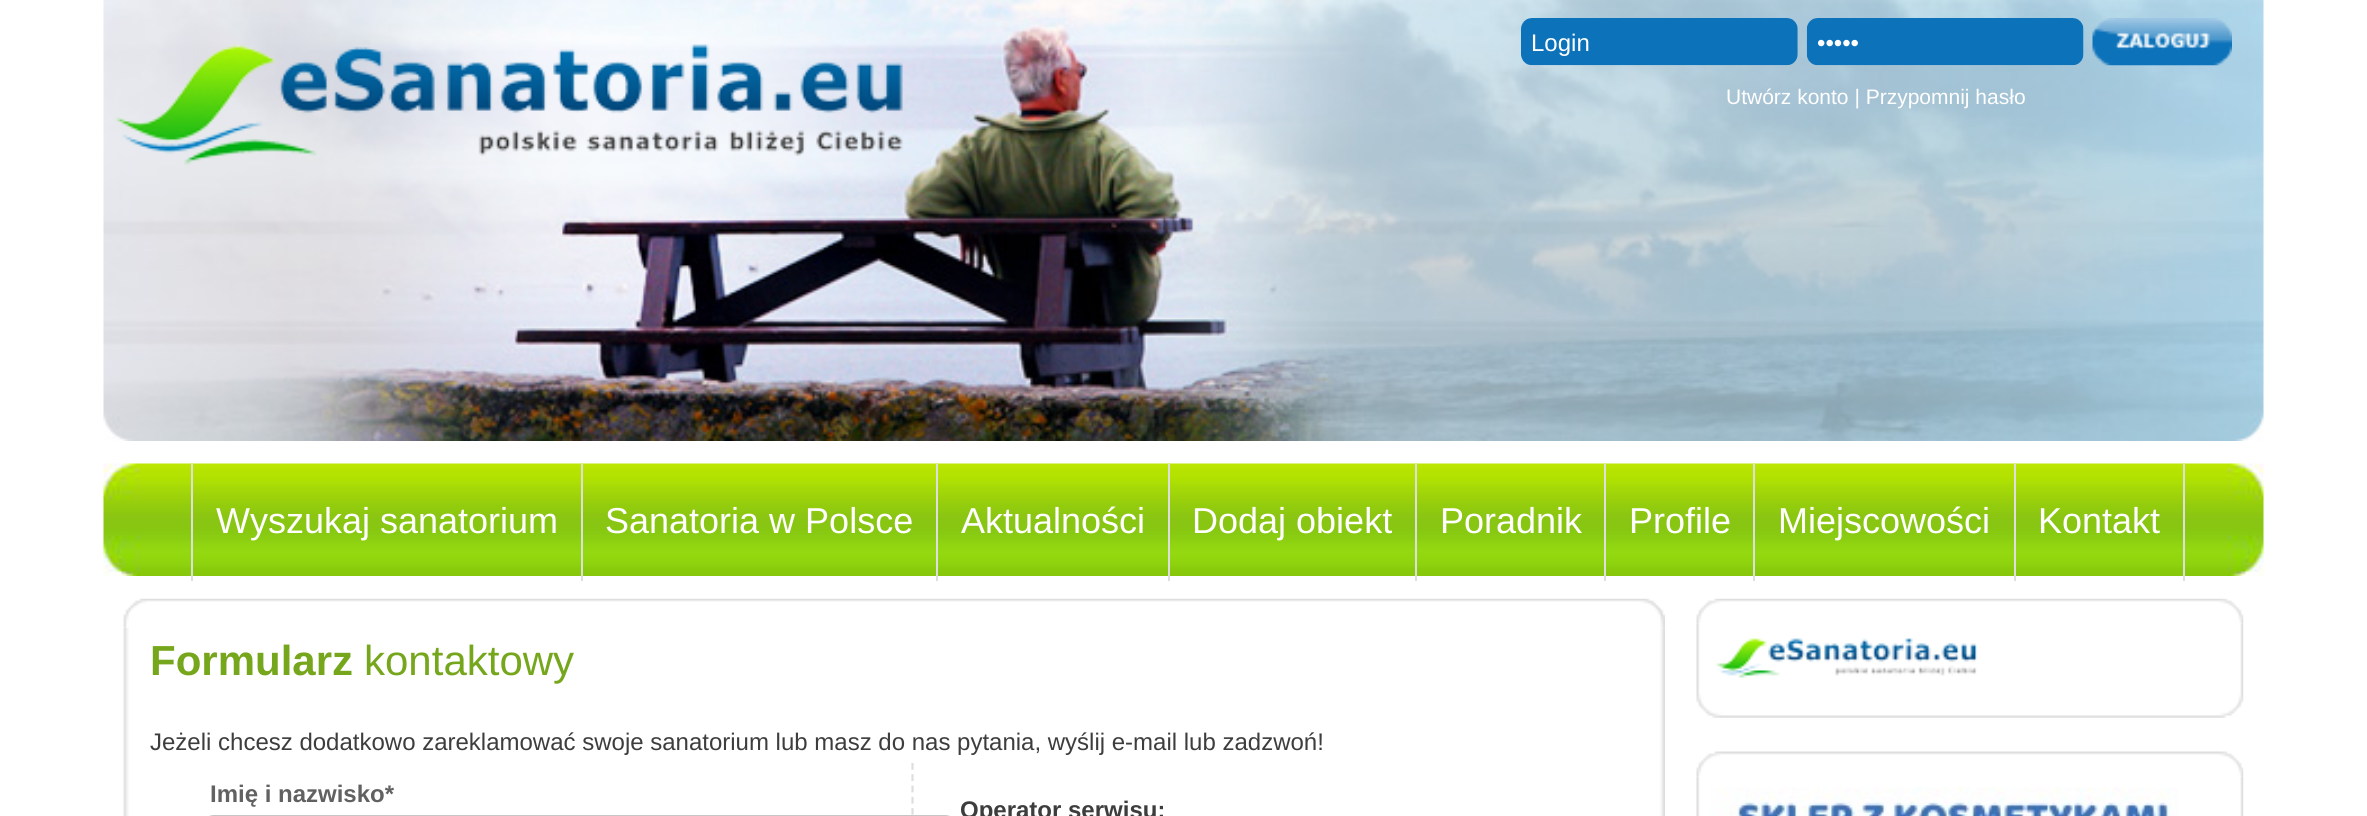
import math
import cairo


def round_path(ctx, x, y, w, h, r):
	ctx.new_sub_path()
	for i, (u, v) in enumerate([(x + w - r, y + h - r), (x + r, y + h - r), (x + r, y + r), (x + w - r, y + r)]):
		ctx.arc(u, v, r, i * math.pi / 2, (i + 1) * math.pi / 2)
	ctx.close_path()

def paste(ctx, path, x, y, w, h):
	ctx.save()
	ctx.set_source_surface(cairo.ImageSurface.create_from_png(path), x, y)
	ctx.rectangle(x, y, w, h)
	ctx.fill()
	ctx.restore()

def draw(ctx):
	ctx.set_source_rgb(1, 1, 1)
	ctx.paint()
	paste(ctx, 'media/1.png', 103, 0, 2161, 441)
	paste(ctx, 'media/2.png', 115, 44, 788, 121)
	paste(ctx, 'media/3.png', 1521, 18, 277, 48)
	ctx.select_font_face('Liberation Sans')
	ctx.set_font_size(24)
	ctx.set_source_rgb(1, 1, 1)
	ctx.move_to(1531, 51)
	ctx.show_text('Login')
	paste(ctx, 'media/4.png', 1806, 18, 278, 48)
	ctx.move_to(1817, 51)
	ctx.show_text('•••••')
	paste(ctx, 'media/5.png', 2092, 18, 140, 48)
	ctx.set_font_size(21)
	ctx.move_to(1726, 104)
	ctx.show_text('Utwórz konto | Przypomnij hasło')
	paste(ctx, 'media/6.png', 103, 463, 2161, 113)
	ctx.set_source_rgb(0.871, 0.871, 0.871)
	ctx.rectangle(581, 464, 2, 117)
	ctx.fill()
	ctx.rectangle(191, 464, 2, 117)
	ctx.fill()
	ctx.set_font_size(36)
	ctx.set_source_rgb(1, 1, 1)
	ctx.move_to(216, 533)
	ctx.show_text('Wyszukaj sanatorium')
	ctx.set_source_rgb(0.871, 0.871, 0.871)
	ctx.rectangle(936, 464, 2, 117)
	ctx.fill()
	ctx.set_source_rgb(1, 1, 1)
	ctx.move_to(605, 533)
	ctx.show_text('Sanatoria w Polsce')
	ctx.set_source_rgb(0.871, 0.871, 0.871)
	ctx.rectangle(1168, 464, 2, 117)
	ctx.fill()
	ctx.set_source_rgb(1, 1, 1)
	ctx.move_to(961, 533)
	ctx.show_text('Aktualności')
	ctx.set_source_rgb(0.871, 0.871, 0.871)
	ctx.rectangle(1415, 464, 2, 117)
	ctx.fill()
	ctx.set_source_rgb(1, 1, 1)
	ctx.move_to(1192, 533)
	ctx.show_text('Dodaj obiekt')
	ctx.set_source_rgb(0.871, 0.871, 0.871)
	ctx.rectangle(1604, 464, 2, 117)
	ctx.fill()
	ctx.set_source_rgb(1, 1, 1)
	ctx.move_to(1440, 533)
	ctx.show_text('Poradnik')
	ctx.set_source_rgb(0.871, 0.871, 0.871)
	ctx.rectangle(1753, 464, 2, 117)
	ctx.fill()
	ctx.set_source_rgb(1, 1, 1)
	ctx.move_to(1629, 533)
	ctx.show_text('Profile')
	ctx.set_source_rgb(0.871, 0.871, 0.871)
	ctx.rectangle(2014, 464, 2, 117)
	ctx.fill()
	ctx.set_source_rgb(1, 1, 1)
	ctx.move_to(1778, 533)
	ctx.show_text('Miejscowości')
	ctx.set_source_rgb(0.871, 0.871, 0.871)
	ctx.rectangle(2183, 464, 2, 117)
	ctx.fill()
	ctx.set_source_rgb(1, 1, 1)
	ctx.move_to(2038, 533)
	ctx.show_text('Kontakt')
	paste(ctx, 'media/7.png', 123, 598, 1542, 30)
	paste(ctx, 'media/8.png', 123, 628, 1542, 188)
	ctx.select_font_face('Liberation Sans', cairo.FONT_SLANT_NORMAL, cairo.FONT_WEIGHT_BOLD)
	ctx.set_font_size(42)
	ctx.set_source_rgb(0.463, 0.651, 0.11)
	ctx.move_to(150, 675)
	ctx.show_text('Formularz')
	ctx.select_font_face('Liberation Sans')
	ctx.move_to(364, 675)
	ctx.show_text('kontaktowy')
	ctx.set_font_size(24)
	ctx.set_source_rgb(0.239, 0.239, 0.239)
	ctx.move_to(150, 750)
	ctx.show_text('Jeżeli chcesz dodatkowo zareklamować swoje sanatorium lub masz do nas pytania, wyślij e-mail lub zadzwoń!')
	ctx.new_path()
	ctx.move_to(912.5, 763)
	ctx.line_to(912.5, 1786.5)
	ctx.set_source_rgb(0.871, 0.871, 0.871)
	ctx.set_line_width(2.2)
	ctx.set_dash([6.75, 4.54])
	ctx.stroke()
	ctx.select_font_face('Liberation Sans', cairo.FONT_SLANT_NORMAL, cairo.FONT_WEIGHT_BOLD)
	ctx.set_source_rgb(0.38, 0.38, 0.38)
	ctx.move_to(210, 802)
	ctx.show_text('Imię i nazwisko*')
	paste(ctx, 'media/9.png', 209, 814, 741, 2)
	round_path(ctx, 204, 816, 751, 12, 10)
	ctx.set_source_rgb(0.78, 0.773, 0.773)
	ctx.set_line_width(2)
	ctx.set_dash([])
	ctx.stroke()
	ctx.set_source_rgb(0.239, 0.239, 0.239)
	ctx.move_to(960, 818)
	ctx.show_text('Operator serwisu:')
	paste(ctx, 'media/10.png', 1696, 598, 548, 26)
	paste(ctx, 'media/11.png', 1696, 623, 548, 70)
	paste(ctx, 'media/12.png', 1715, 638, 263, 40)
	paste(ctx, 'media/13.png', 1696, 693, 548, 25)
	paste(ctx, 'media/14.png', 1696, 751, 548, 26)
	paste(ctx, 'media/15.png', 1696, 776, 548, 40)
	paste(ctx, 'media/16.png', 1710, 787, 468, 29)


surface = cairo.ImageSurface(cairo.FORMAT_RGB24, 2367, 816)
ctx = cairo.Context(surface)
options = cairo.FontOptions()
options.set_hint_metrics(cairo.HINT_METRICS_OFF)
options.set_hint_style(cairo.HINT_STYLE_NONE)
ctx.set_font_options(options)
ctx.set_miter_limit(4)
draw(ctx)
surface.write_to_png('image.png')
